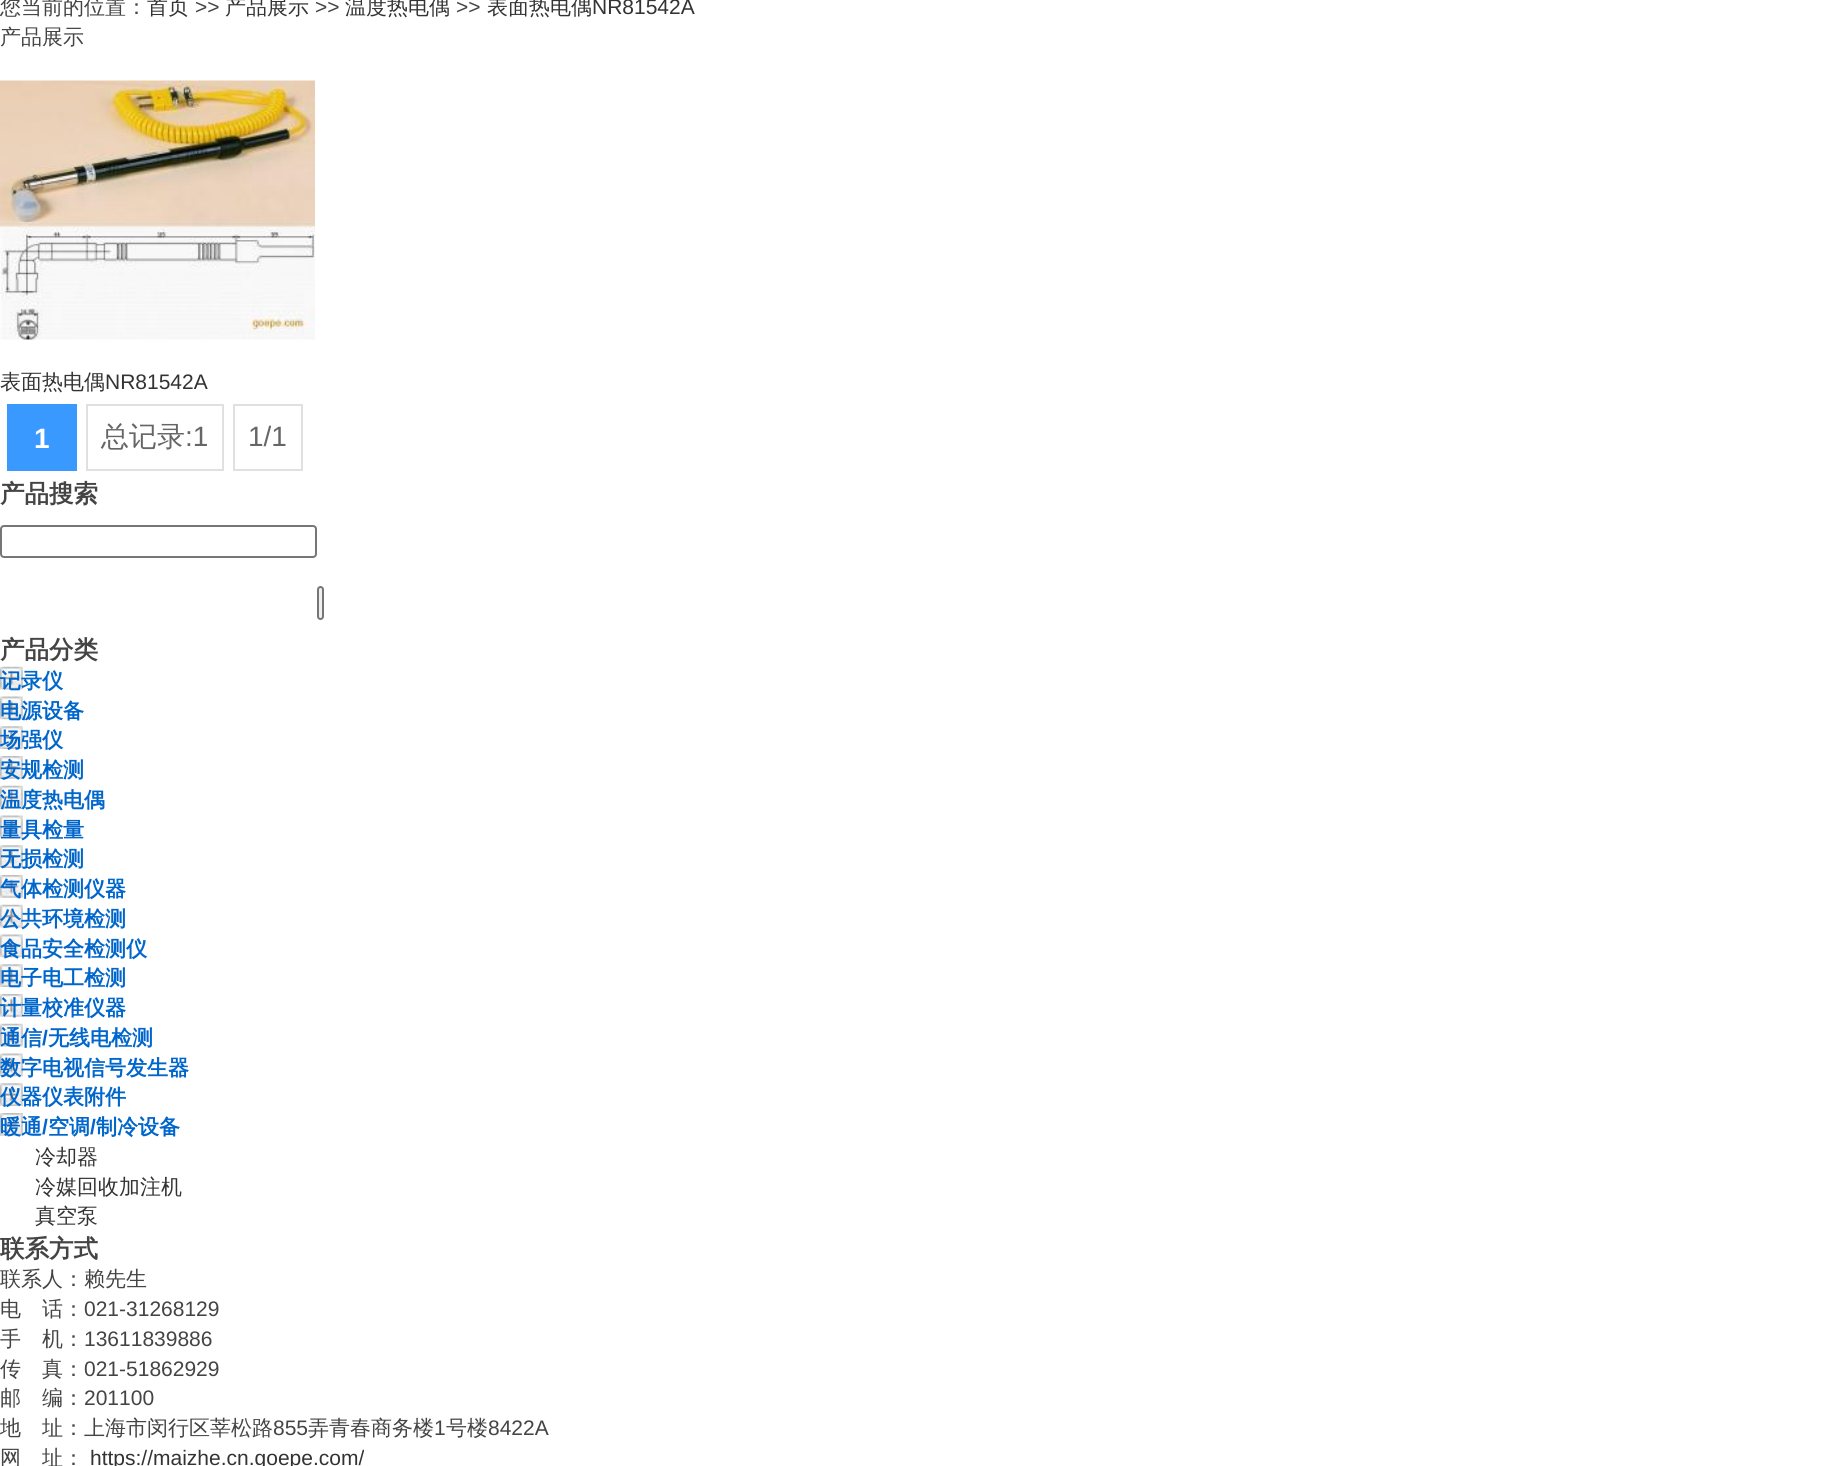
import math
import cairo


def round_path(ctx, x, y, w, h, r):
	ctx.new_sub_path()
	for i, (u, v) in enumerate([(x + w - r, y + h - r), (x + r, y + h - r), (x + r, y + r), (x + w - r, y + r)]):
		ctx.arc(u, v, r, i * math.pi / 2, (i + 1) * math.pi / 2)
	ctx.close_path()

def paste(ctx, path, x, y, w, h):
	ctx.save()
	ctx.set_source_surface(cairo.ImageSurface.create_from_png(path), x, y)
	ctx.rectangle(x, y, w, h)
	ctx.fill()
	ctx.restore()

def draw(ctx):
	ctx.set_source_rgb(1, 1, 1)
	ctx.paint()
	ctx.select_font_face('WenQuanYi Zen Hei Medium')
	ctx.set_font_size(21)
	ctx.set_source_rgb(0.267, 0.267, 0.267)
	ctx.move_to(0, 14)
	ctx.show_text('您当前的位置：')
	ctx.set_source_rgb(0.2, 0.2, 0.2)
	ctx.move_to(147, 14)
	ctx.show_text('首页')
	ctx.select_font_face('Liberation Sans')
	ctx.set_source_rgb(0.267, 0.267, 0.267)
	ctx.move_to(195, 14)
	ctx.show_text('>>')
	ctx.select_font_face('WenQuanYi Zen Hei Medium')
	ctx.set_source_rgb(0.2, 0.2, 0.2)
	ctx.move_to(225, 14)
	ctx.show_text('产品展示')
	ctx.select_font_face('Liberation Sans')
	ctx.set_source_rgb(0.267, 0.267, 0.267)
	ctx.move_to(315, 14)
	ctx.show_text('>>')
	ctx.select_font_face('WenQuanYi Zen Hei Medium')
	ctx.set_source_rgb(0.2, 0.2, 0.2)
	ctx.move_to(345, 14)
	ctx.show_text('温度热电偶')
	ctx.select_font_face('Liberation Sans')
	ctx.set_source_rgb(0.267, 0.267, 0.267)
	ctx.move_to(456, 14)
	ctx.show_text('>>')
	ctx.select_font_face('WenQuanYi Zen Hei Medium')
	ctx.set_source_rgb(0.2, 0.2, 0.2)
	ctx.move_to(487, 14)
	ctx.show_text('表面热电偶')
	ctx.select_font_face('Liberation Sans')
	ctx.move_to(592, 14)
	ctx.show_text('NR81542A')
	ctx.select_font_face('WenQuanYi Zen Hei Medium')
	ctx.set_source_rgb(0.267, 0.267, 0.267)
	ctx.move_to(0, 44)
	ctx.show_text('产品展示')
	paste(ctx, 'media/1.png', 0, 80, 315, 260)
	ctx.set_source_rgb(0.2, 0.2, 0.2)
	ctx.move_to(0, 389)
	ctx.show_text('表面热电偶')
	ctx.select_font_face('Liberation Sans')
	ctx.move_to(105, 389)
	ctx.show_text('NR81542A')
	ctx.set_source_rgb(0.224, 0.6, 1)
	ctx.rectangle(7, 404, 70, 67)
	ctx.fill()
	ctx.select_font_face('Liberation Sans', cairo.FONT_SLANT_NORMAL, cairo.FONT_WEIGHT_BOLD)
	ctx.set_font_size(28)
	ctx.set_source_rgb(1, 1, 1)
	ctx.move_to(34, 448)
	ctx.show_text('1')
	ctx.rectangle(87, 405, 136, 65)
	ctx.set_source_rgb(0.878, 0.878, 0.878)
	ctx.stroke()
	ctx.select_font_face('WenQuanYi Zen Hei Medium')
	ctx.set_source_rgb(0.4, 0.4, 0.4)
	ctx.move_to(101, 446)
	ctx.show_text('总记录')
	ctx.select_font_face('Liberation Sans')
	ctx.move_to(185, 446)
	ctx.show_text(':1')
	ctx.rectangle(234, 405, 68, 65)
	ctx.set_source_rgb(0.878, 0.878, 0.878)
	ctx.stroke()
	ctx.set_source_rgb(0.4, 0.4, 0.4)
	ctx.move_to(248, 446)
	ctx.show_text('1/1')
	ctx.set_source_rgb(1, 1, 1)
	ctx.rectangle(271, 425, 1, 4)
	ctx.fill()
	ctx.select_font_face('WenQuanYi Zen Hei', cairo.FONT_SLANT_NORMAL, cairo.FONT_WEIGHT_BOLD)
	ctx.set_font_size(24.5)
	ctx.set_source_rgb(0.267, 0.267, 0.267)
	ctx.move_to(0, 502)
	ctx.show_text('产品搜索')
	round_path(ctx, 1, 526, 315, 31, 3)
	ctx.set_source_rgb(0.463, 0.463, 0.463)
	ctx.stroke()
	ctx.set_source_rgb(0.937, 0.937, 0.937)
	round_path(ctx, 318, 587, 5, 32, 2.5)
	ctx.fill_preserve()
	ctx.set_source_rgb(0.463, 0.463, 0.463)
	ctx.stroke()
	ctx.set_source_rgb(0.267, 0.267, 0.267)
	ctx.move_to(0, 658)
	ctx.show_text('产品分类')
	paste(ctx, 'media/2.png', 0, 666, 23, 24)
	ctx.set_font_size(21)
	ctx.set_source_rgb(0, 0.4, 0.8)
	ctx.move_to(0, 688)
	ctx.show_text('记录仪')
	paste(ctx, 'media/3.png', 0, 696, 23, 24)
	ctx.move_to(0, 718)
	ctx.show_text('电源设备')
	paste(ctx, 'media/4.png', 0, 726, 23, 23)
	ctx.move_to(0, 747)
	ctx.show_text('场强仪')
	paste(ctx, 'media/5.png', 0, 756, 23, 23)
	ctx.move_to(0, 777)
	ctx.show_text('安规检测')
	paste(ctx, 'media/2.png', 0, 785, 23, 24)
	ctx.move_to(0, 807)
	ctx.show_text('温度热电偶')
	paste(ctx, 'media/3.png', 0, 815, 23, 24)
	ctx.move_to(0, 837)
	ctx.show_text('量具检量')
	paste(ctx, 'media/4.png', 0, 845, 23, 23)
	ctx.move_to(0, 866)
	ctx.show_text('无损检测')
	paste(ctx, 'media/5.png', 0, 875, 23, 23)
	ctx.move_to(0, 896)
	ctx.show_text('气体检测仪器')
	paste(ctx, 'media/2.png', 0, 904, 23, 24)
	ctx.move_to(0, 926)
	ctx.show_text('公共环境检测')
	paste(ctx, 'media/3.png', 0, 934, 23, 24)
	ctx.move_to(0, 956)
	ctx.show_text('食品安全检测仪')
	paste(ctx, 'media/4.png', 0, 964, 23, 23)
	ctx.move_to(0, 985)
	ctx.show_text('电子电工检测')
	paste(ctx, 'media/5.png', 0, 994, 23, 23)
	ctx.move_to(0, 1015)
	ctx.show_text('计量校准仪器')
	paste(ctx, 'media/2.png', 0, 1023, 23, 24)
	ctx.move_to(0, 1045)
	ctx.show_text('通信')
	ctx.select_font_face('Liberation Sans', cairo.FONT_SLANT_NORMAL, cairo.FONT_WEIGHT_BOLD)
	ctx.move_to(42, 1045)
	ctx.show_text('/')
	ctx.select_font_face('WenQuanYi Zen Hei', cairo.FONT_SLANT_NORMAL, cairo.FONT_WEIGHT_BOLD)
	ctx.move_to(48, 1045)
	ctx.show_text('无线电检测')
	paste(ctx, 'media/3.png', 0, 1053, 23, 24)
	ctx.move_to(0, 1075)
	ctx.show_text('数字电视信号发生器')
	paste(ctx, 'media/4.png', 0, 1083, 23, 23)
	ctx.move_to(0, 1104)
	ctx.show_text('仪器仪表附件')
	paste(ctx, 'media/6.png', 0, 1113, 23, 23)
	ctx.move_to(0, 1134)
	ctx.show_text('暖通')
	ctx.select_font_face('Liberation Sans', cairo.FONT_SLANT_NORMAL, cairo.FONT_WEIGHT_BOLD)
	ctx.move_to(42, 1134)
	ctx.show_text('/')
	ctx.select_font_face('WenQuanYi Zen Hei', cairo.FONT_SLANT_NORMAL, cairo.FONT_WEIGHT_BOLD)
	ctx.move_to(48, 1134)
	ctx.show_text('空调')
	ctx.select_font_face('Liberation Sans', cairo.FONT_SLANT_NORMAL, cairo.FONT_WEIGHT_BOLD)
	ctx.move_to(90, 1134)
	ctx.show_text('/')
	ctx.select_font_face('WenQuanYi Zen Hei', cairo.FONT_SLANT_NORMAL, cairo.FONT_WEIGHT_BOLD)
	ctx.move_to(96, 1134)
	ctx.show_text('制冷设备')
	ctx.select_font_face('WenQuanYi Zen Hei Medium')
	ctx.set_source_rgb(0.2, 0.2, 0.2)
	for x, y, s in [
		(35, 1164, '冷却器'),
		(35, 1194, '冷媒回收加注机'),
		(35, 1223, '真空泵'),
	]:
		ctx.move_to(x, y)
		ctx.show_text(s)
	ctx.select_font_face('WenQuanYi Zen Hei', cairo.FONT_SLANT_NORMAL, cairo.FONT_WEIGHT_BOLD)
	ctx.set_font_size(24.5)
	ctx.set_source_rgb(0.267, 0.267, 0.267)
	ctx.move_to(0, 1257)
	ctx.show_text('联系方式')
	ctx.select_font_face('WenQuanYi Zen Hei Medium')
	ctx.set_font_size(21)
	ctx.move_to(0, 1286)
	ctx.show_text('联系人：赖先生')
	ctx.move_to(0, 1316)
	ctx.show_text('电　话：')
	ctx.select_font_face('Liberation Sans')
	ctx.move_to(84, 1316)
	ctx.show_text('021-31268129')
	ctx.select_font_face('WenQuanYi Zen Hei Medium')
	ctx.move_to(0, 1346)
	ctx.show_text('手　机：')
	ctx.select_font_face('Liberation Sans')
	ctx.move_to(84, 1346)
	ctx.show_text('13611839886')
	ctx.select_font_face('WenQuanYi Zen Hei Medium')
	ctx.move_to(0, 1376)
	ctx.show_text('传　真：')
	ctx.select_font_face('Liberation Sans')
	ctx.move_to(84, 1376)
	ctx.show_text('021-51862929')
	ctx.select_font_face('WenQuanYi Zen Hei Medium')
	ctx.move_to(0, 1405)
	ctx.show_text('邮　编：')
	ctx.select_font_face('Liberation Sans')
	ctx.move_to(84, 1405)
	ctx.show_text('201100')
	ctx.select_font_face('WenQuanYi Zen Hei Medium')
	ctx.move_to(0, 1435)
	ctx.show_text('地　址：上海市闵行区莘松路')
	ctx.select_font_face('Liberation Sans')
	ctx.move_to(273, 1435)
	ctx.show_text('855')
	ctx.select_font_face('WenQuanYi Zen Hei Medium')
	ctx.move_to(308, 1435)
	ctx.show_text('弄青春商务楼')
	ctx.select_font_face('Liberation Sans')
	ctx.move_to(434, 1435)
	ctx.show_text('1')
	ctx.select_font_face('WenQuanYi Zen Hei Medium')
	ctx.move_to(446, 1435)
	ctx.show_text('号楼')
	ctx.select_font_face('Liberation Sans')
	ctx.move_to(488, 1435)
	ctx.show_text('8422A')
	ctx.select_font_face('WenQuanYi Zen Hei Medium')
	ctx.move_to(0, 1465)
	ctx.show_text('网　址：')
	ctx.select_font_face('Liberation Sans')
	ctx.set_source_rgb(0.2, 0.2, 0.2)
	ctx.move_to(90, 1465)
	ctx.show_text('https://maizhe.cn.goepe.com/')


surface = cairo.ImageSurface(cairo.FORMAT_RGB24, 1840, 1466)
ctx = cairo.Context(surface)
options = cairo.FontOptions()
options.set_hint_metrics(cairo.HINT_METRICS_OFF)
options.set_hint_style(cairo.HINT_STYLE_NONE)
ctx.set_font_options(options)
ctx.set_miter_limit(4)
draw(ctx)
surface.write_to_png('image.png')
